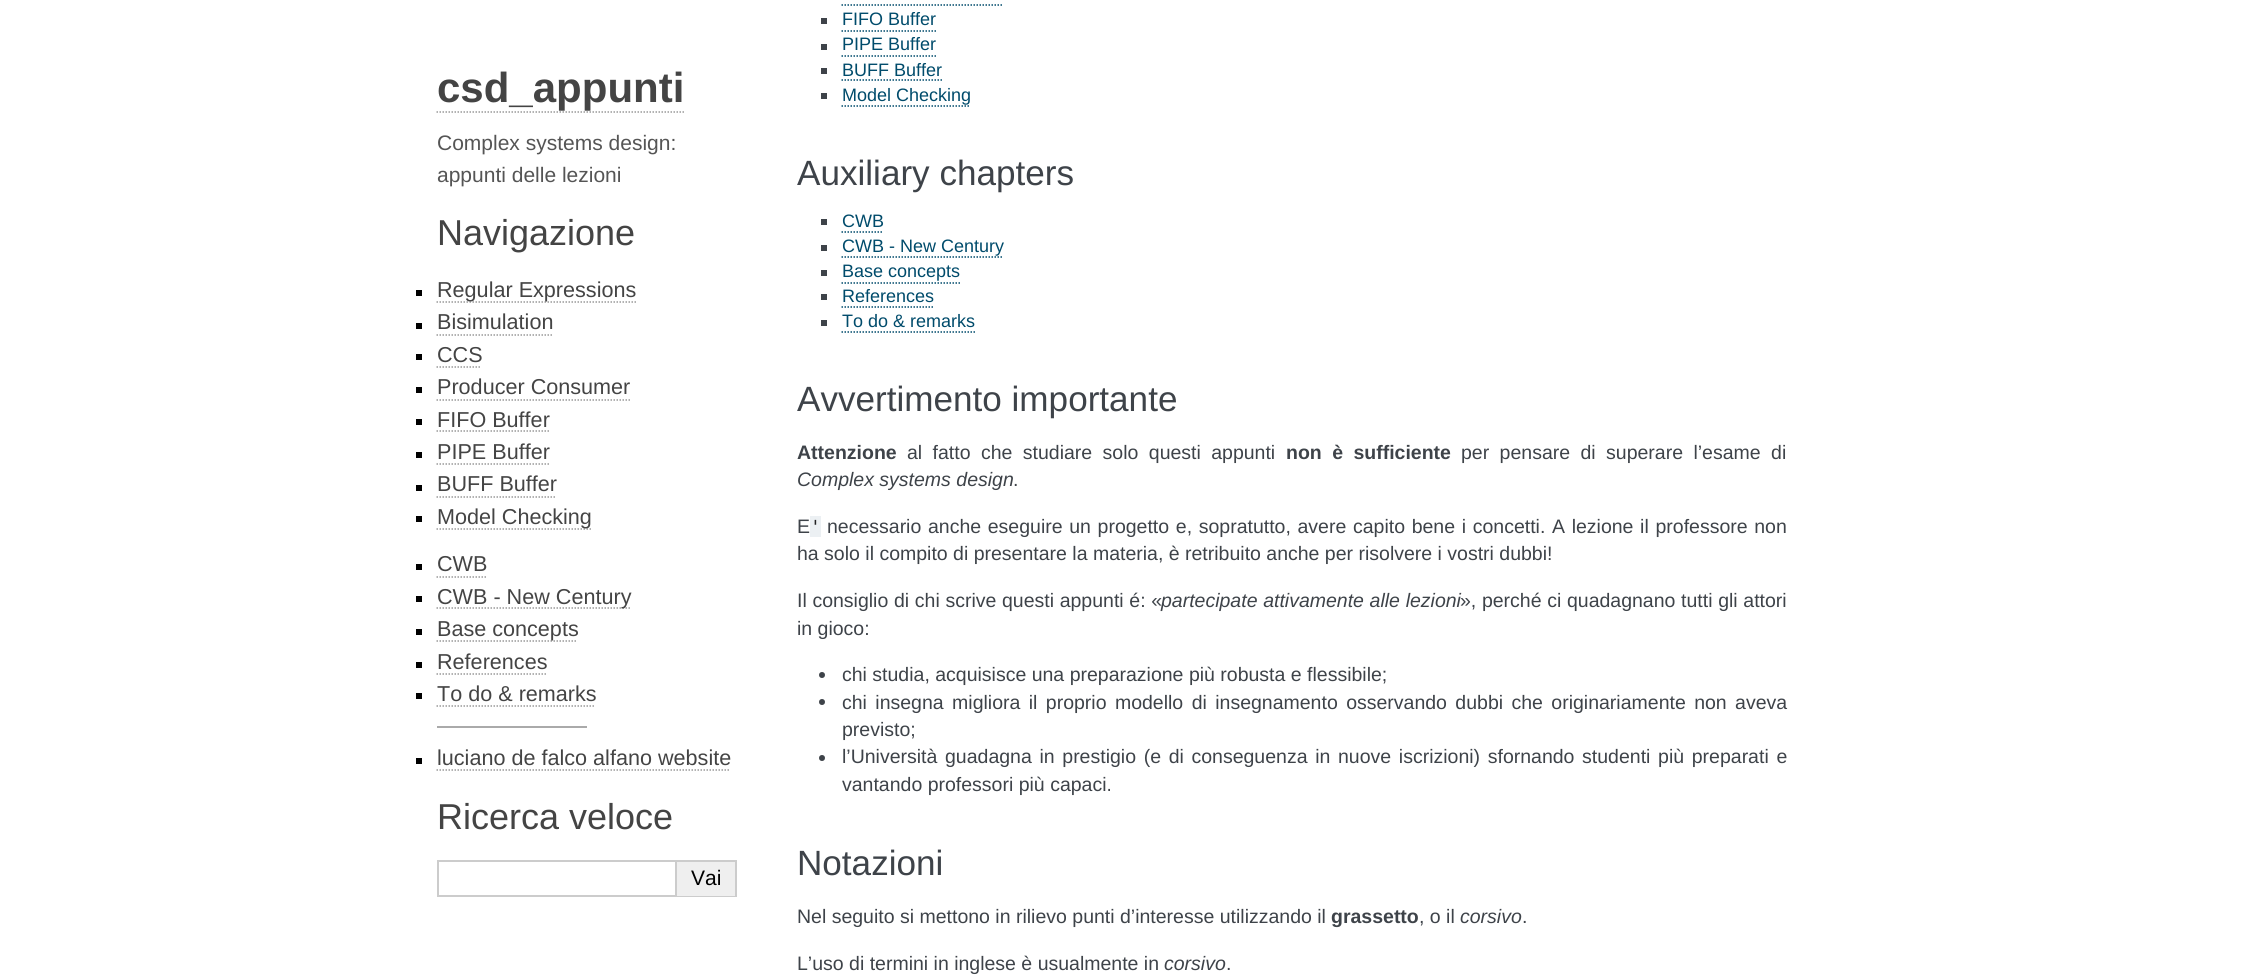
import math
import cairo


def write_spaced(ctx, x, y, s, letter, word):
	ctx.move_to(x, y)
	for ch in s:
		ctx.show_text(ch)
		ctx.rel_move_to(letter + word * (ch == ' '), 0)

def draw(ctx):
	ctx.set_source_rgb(1, 1, 1)
	ctx.paint()
	ctx.select_font_face('Liberation Sans', cairo.FONT_SLANT_NORMAL, cairo.FONT_WEIGHT_BOLD)
	ctx.set_font_size(42)
	ctx.set_source_rgb(0.267, 0.267, 0.267)
	ctx.move_to(437, 102)
	ctx.show_text('csd_appunti')
	ctx.new_path()
	ctx.move_to(436.5, 112)
	ctx.line_to(684, 112)
	ctx.set_source_rgb(0.6, 0.6, 0.6)
	ctx.set_line_width(1.5)
	ctx.set_dash([1.5, 1.5])
	ctx.stroke()
	ctx.select_font_face('Liberation Sans')
	ctx.set_font_size(21)
	ctx.set_source_rgb(0.333, 0.333, 0.333)
	ctx.move_to(437, 150)
	ctx.show_text('Complex systems design:')
	ctx.move_to(437, 182)
	ctx.show_text('appunti delle lezioni')
	ctx.set_font_size(36)
	ctx.set_source_rgb(0.267, 0.267, 0.267)
	ctx.move_to(437, 245)
	ctx.show_text('Navigazione')
	ctx.set_source_rgb(0, 0, 0)
	ctx.rectangle(416, 290, 6, 6)
	ctx.fill()
	ctx.new_path()
	ctx.move_to(436.5, 302)
	ctx.line_to(636, 302)
	ctx.set_source_rgb(0.6, 0.6, 0.6)
	ctx.stroke()
	ctx.set_font_size(21.6)
	ctx.set_source_rgb(0.267, 0.267, 0.267)
	ctx.move_to(437, 297)
	ctx.show_text('Regular Expressions')
	ctx.set_source_rgb(0, 0, 0)
	ctx.rectangle(416, 323, 6, 6)
	ctx.fill()
	ctx.set_source_rgb(0.267, 0.267, 0.267)
	ctx.move_to(437, 329)
	ctx.show_text('Bisimulation')
	ctx.new_path()
	ctx.move_to(436.5, 335)
	ctx.line_to(553.5, 335)
	ctx.set_source_rgb(0.6, 0.6, 0.6)
	ctx.stroke()
	ctx.set_source_rgb(0, 0, 0)
	ctx.rectangle(416, 354, 6, 6)
	ctx.fill()
	ctx.set_source_rgb(0.267, 0.267, 0.267)
	ctx.move_to(437, 362)
	ctx.show_text('CCS')
	ctx.new_path()
	ctx.move_to(436.5, 367)
	ctx.line_to(481.5, 367)
	ctx.set_source_rgb(0.6, 0.6, 0.6)
	ctx.stroke()
	ctx.set_source_rgb(0, 0, 0)
	ctx.rectangle(416, 387, 6, 6)
	ctx.fill()
	ctx.set_source_rgb(0.267, 0.267, 0.267)
	ctx.move_to(437, 394)
	ctx.show_text('Producer Consumer')
	ctx.new_path()
	ctx.move_to(436.5, 400)
	ctx.line_to(630, 400)
	ctx.set_source_rgb(0.6, 0.6, 0.6)
	ctx.stroke()
	ctx.set_source_rgb(0, 0, 0)
	ctx.rectangle(416, 419, 6, 6)
	ctx.fill()
	ctx.set_source_rgb(0.267, 0.267, 0.267)
	ctx.move_to(437, 427)
	ctx.show_text('FIFO Buffer')
	ctx.new_path()
	ctx.move_to(436.5, 431)
	ctx.line_to(549, 431)
	ctx.set_source_rgb(0.6, 0.6, 0.6)
	ctx.stroke()
	ctx.set_source_rgb(0, 0, 0)
	ctx.rectangle(416, 452, 6, 6)
	ctx.fill()
	ctx.set_source_rgb(0.267, 0.267, 0.267)
	ctx.move_to(437, 459)
	ctx.show_text('PIPE Buffer')
	ctx.new_path()
	ctx.move_to(436.5, 464)
	ctx.line_to(549, 464)
	ctx.set_source_rgb(0.6, 0.6, 0.6)
	ctx.stroke()
	ctx.set_source_rgb(0, 0, 0)
	ctx.rectangle(416, 485, 6, 6)
	ctx.fill()
	ctx.set_source_rgb(0.267, 0.267, 0.267)
	ctx.move_to(437, 491)
	ctx.show_text('BUFF Buffer')
	ctx.new_path()
	ctx.move_to(436.5, 497)
	ctx.line_to(556.5, 497)
	ctx.set_source_rgb(0.6, 0.6, 0.6)
	ctx.stroke()
	ctx.set_source_rgb(0, 0, 0)
	ctx.rectangle(416, 516, 6, 6)
	ctx.fill()
	ctx.new_path()
	ctx.move_to(436.5, 529)
	ctx.line_to(591, 529)
	ctx.set_source_rgb(0.6, 0.6, 0.6)
	ctx.stroke()
	ctx.set_source_rgb(0.267, 0.267, 0.267)
	ctx.move_to(437, 524)
	ctx.show_text('Model Checking')
	ctx.set_source_rgb(0, 0, 0)
	ctx.rectangle(416, 564, 6, 6)
	ctx.fill()
	ctx.set_source_rgb(0.267, 0.267, 0.267)
	ctx.move_to(437, 571)
	ctx.show_text('CWB')
	ctx.new_path()
	ctx.move_to(436.5, 577)
	ctx.line_to(487.5, 577)
	ctx.set_source_rgb(0.6, 0.6, 0.6)
	ctx.stroke()
	ctx.set_source_rgb(0, 0, 0)
	ctx.rectangle(416, 596, 6, 6)
	ctx.fill()
	ctx.new_path()
	ctx.move_to(436.5, 608)
	ctx.line_to(631.5, 608)
	ctx.set_source_rgb(0.6, 0.6, 0.6)
	ctx.stroke()
	ctx.set_source_rgb(0.267, 0.267, 0.267)
	ctx.move_to(437, 604)
	ctx.show_text('CWB - New Century')
	ctx.set_source_rgb(0, 0, 0)
	ctx.rectangle(416, 629, 6, 6)
	ctx.fill()
	ctx.new_path()
	ctx.move_to(436.5, 641)
	ctx.line_to(577.5, 641)
	ctx.set_source_rgb(0.6, 0.6, 0.6)
	ctx.stroke()
	ctx.set_source_rgb(0.267, 0.267, 0.267)
	ctx.move_to(437, 636)
	ctx.show_text('Base concepts')
	ctx.set_source_rgb(0, 0, 0)
	ctx.rectangle(416, 662, 6, 6)
	ctx.fill()
	ctx.set_source_rgb(0.267, 0.267, 0.267)
	ctx.move_to(437, 669)
	ctx.show_text('References')
	ctx.new_path()
	ctx.move_to(436.5, 674)
	ctx.line_to(547.5, 674)
	ctx.set_source_rgb(0.6, 0.6, 0.6)
	ctx.stroke()
	ctx.set_source_rgb(0, 0, 0)
	ctx.rectangle(416, 693, 6, 6)
	ctx.fill()
	ctx.set_source_rgb(0.267, 0.267, 0.267)
	ctx.move_to(437, 701)
	ctx.show_text('To do & remarks')
	ctx.new_path()
	ctx.move_to(436.5, 706)
	ctx.line_to(595.5, 706)
	ctx.set_source_rgb(0.6, 0.6, 0.6)
	ctx.stroke()
	ctx.set_source_rgb(0.667, 0.667, 0.667)
	ctx.rectangle(437, 726, 150, 2)
	ctx.fill()
	ctx.set_source_rgb(0, 0, 0)
	ctx.rectangle(416, 758, 6, 6)
	ctx.fill()
	ctx.set_source_rgb(0.267, 0.267, 0.267)
	ctx.move_to(437, 765)
	ctx.show_text('luciano de falco alfano website')
	ctx.new_path()
	ctx.move_to(436.5, 770)
	ctx.line_to(730.5, 770)
	ctx.set_source_rgb(0.6, 0.6, 0.6)
	ctx.stroke()
	ctx.set_font_size(36)
	ctx.set_source_rgb(0.267, 0.267, 0.267)
	ctx.move_to(437, 829)
	ctx.show_text('Ricerca veloce')
	ctx.rectangle(438, 861, 238, 35)
	ctx.set_source_rgb(0.8, 0.8, 0.8)
	ctx.set_line_width(2)
	ctx.set_dash([])
	ctx.stroke()
	ctx.set_source_rgb(0.937, 0.937, 0.937)
	ctx.rectangle(677, 862, 58, 34)
	ctx.fill()
	ctx.set_source_rgb(0.8, 0.8, 0.8)
	ctx.rectangle(677, 860, 60, 2)
	ctx.rectangle(735, 860, 2, 37)
	ctx.rectangle(677, 896, 60, 1)
	ctx.fill()
	ctx.set_font_size(21)
	ctx.set_source_rgb(0, 0, 0)
	ctx.move_to(691, 885)
	ctx.show_text('Vai')
	ctx.new_path()
	ctx.move_to(841.5, 5)
	ctx.line_to(1002, 5)
	ctx.set_source_rgb(0, 0.294, 0.42)
	ctx.set_line_width(1.5)
	ctx.set_dash([1.5, 1.5])
	ctx.stroke()
	ctx.set_source_rgb(0.243, 0.263, 0.286)
	ctx.rectangle(821, 18, 6, 6)
	ctx.fill()
	ctx.set_font_size(18)
	ctx.set_source_rgb(0, 0.294, 0.42)
	ctx.move_to(842, 25)
	ctx.show_text('FIFO Buffer')
	ctx.new_path()
	ctx.move_to(841.5, 31)
	ctx.line_to(936, 31)
	ctx.stroke()
	ctx.set_source_rgb(0.243, 0.263, 0.286)
	ctx.rectangle(821, 44, 6, 6)
	ctx.fill()
	ctx.set_source_rgb(0, 0.294, 0.42)
	ctx.move_to(842, 50)
	ctx.show_text('PIPE Buffer')
	ctx.new_path()
	ctx.move_to(841.5, 56)
	ctx.line_to(936, 56)
	ctx.stroke()
	ctx.set_source_rgb(0.243, 0.263, 0.286)
	ctx.rectangle(821, 68, 6, 6)
	ctx.fill()
	ctx.set_source_rgb(0, 0.294, 0.42)
	ctx.move_to(842, 76)
	ctx.show_text('BUFF Buffer')
	ctx.new_path()
	ctx.move_to(841.5, 80)
	ctx.line_to(942, 80)
	ctx.stroke()
	ctx.set_source_rgb(0.243, 0.263, 0.286)
	ctx.rectangle(821, 93, 6, 6)
	ctx.fill()
	ctx.set_source_rgb(0, 0.294, 0.42)
	ctx.move_to(842, 101)
	ctx.show_text('Model Checking')
	ctx.new_path()
	ctx.move_to(841.5, 106)
	ctx.line_to(970.5, 106)
	ctx.stroke()
	ctx.set_font_size(35.1)
	ctx.set_source_rgb(0.243, 0.263, 0.286)
	ctx.move_to(797, 185)
	ctx.show_text('Auxiliary chapters')
	ctx.rectangle(821, 219, 6, 6)
	ctx.fill()
	ctx.set_font_size(18)
	ctx.set_source_rgb(0, 0.294, 0.42)
	ctx.move_to(842, 227)
	ctx.show_text('CWB')
	ctx.new_path()
	ctx.move_to(841.5, 232)
	ctx.line_to(883.5, 232)
	ctx.stroke()
	ctx.set_source_rgb(0.243, 0.263, 0.286)
	ctx.rectangle(821, 245, 6, 6)
	ctx.fill()
	ctx.set_source_rgb(0, 0.294, 0.42)
	ctx.move_to(842, 252)
	ctx.show_text('CWB - New Century')
	ctx.new_path()
	ctx.move_to(841.5, 257)
	ctx.line_to(1003.5, 257)
	ctx.stroke()
	ctx.set_source_rgb(0.243, 0.263, 0.286)
	ctx.rectangle(821, 270, 6, 6)
	ctx.fill()
	ctx.set_source_rgb(0, 0.294, 0.42)
	ctx.move_to(842, 277)
	ctx.show_text('Base concepts')
	ctx.new_path()
	ctx.move_to(841.5, 283)
	ctx.line_to(960, 283)
	ctx.stroke()
	ctx.set_source_rgb(0.243, 0.263, 0.286)
	ctx.rectangle(821, 294, 6, 6)
	ctx.fill()
	ctx.set_source_rgb(0, 0.294, 0.42)
	ctx.move_to(842, 302)
	ctx.show_text('References')
	ctx.new_path()
	ctx.move_to(841.5, 307)
	ctx.line_to(933, 307)
	ctx.stroke()
	ctx.set_source_rgb(0.243, 0.263, 0.286)
	ctx.rectangle(821, 320, 6, 6)
	ctx.fill()
	ctx.set_source_rgb(0, 0.294, 0.42)
	ctx.move_to(842, 327)
	ctx.show_text('To do & remarks')
	ctx.new_path()
	ctx.move_to(841.5, 332)
	ctx.line_to(975, 332)
	ctx.stroke()
	ctx.set_font_size(35.1)
	ctx.set_source_rgb(0.243, 0.263, 0.286)
	ctx.move_to(797, 411)
	ctx.show_text('Avvertimento importante')
	ctx.select_font_face('Liberation Sans', cairo.FONT_SLANT_NORMAL, cairo.FONT_WEIGHT_BOLD)
	ctx.set_font_size(19.5)
	ctx.move_to(797, 459)
	ctx.show_text('Attenzione')
	ctx.select_font_face('Liberation Sans')
	write_spaced(ctx, 907, 459, 'al fatto che studiare solo questi appunti', 0, 5)
	ctx.select_font_face('Liberation Sans', cairo.FONT_SLANT_NORMAL, cairo.FONT_WEIGHT_BOLD)
	write_spaced(ctx, 1286, 459, 'non è sufficiente', 0, 5)
	ctx.select_font_face('Liberation Sans')
	write_spaced(ctx, 1461, 459, 'per pensare di superare l’esame di', 0, 5)
	ctx.select_font_face('Liberation Sans', cairo.FONT_SLANT_ITALIC)
	ctx.move_to(797, 486)
	ctx.show_text('Complex systems design')
	ctx.select_font_face('Liberation Sans')
	ctx.move_to(1013, 486)
	ctx.show_text('.')
	ctx.move_to(797, 533)
	ctx.show_text('E')
	ctx.set_source_rgb(0.925, 0.941, 0.953)
	ctx.rectangle(810, 516, 11, 21)
	ctx.fill()
	ctx.select_font_face('DejaVu Sans Mono')
	ctx.set_font_size(18)
	ctx.set_source_rgb(0.133, 0.133, 0.133)
	ctx.move_to(810, 533)
	ctx.show_text('\'')
	ctx.select_font_face('Liberation Sans')
	ctx.set_font_size(19.5)
	ctx.set_source_rgb(0.243, 0.263, 0.286)
	write_spaced(ctx, 827, 533, 'necessario anche eseguire un progetto e, sopratutto, avere capito bene i concetti. A lezione il professore non', 0, 1.25)
	ctx.move_to(797, 560)
	ctx.show_text('ha solo il compito di presentare la materia, è retribuito anche per risolvere i vostri dubbi!')
	write_spaced(ctx, 797, 607, 'Il consiglio di chi scrive questi appunti é: «', 0, 0.25)
	ctx.select_font_face('Liberation Sans', cairo.FONT_SLANT_ITALIC)
	write_spaced(ctx, 1161, 607, 'partecipate attivamente alle lezioni', 0, 0.25)
	ctx.select_font_face('Liberation Sans')
	write_spaced(ctx, 1460, 607, '», perché ci quadagnano tutti gli attori', 0, 0.25)
	ctx.move_to(797, 635)
	ctx.show_text('in gioco:')
	ctx.new_path()
	ctx.arc(822, 675, 3, 0, 2 * math.pi)
	ctx.fill()
	ctx.move_to(842, 681)
	ctx.show_text('chi studia, acquisisce una preparazione più robusta e flessibile;')
	ctx.new_path()
	ctx.arc(822, 702, 3, 0, 2 * math.pi)
	ctx.fill()
	write_spaced(ctx, 842, 709, 'chi insegna migliora il proprio modello di insegnamento osservando dubbi che originariamente non aveva', 0, 3)
	ctx.move_to(842, 736)
	ctx.show_text('previsto;')
	ctx.new_path()
	ctx.arc(822, 758, 3, 0, 2 * math.pi)
	ctx.fill()
	write_spaced(ctx, 842, 763, 'l’Università guadagna in prestigio (e di conseguenza in nuove iscrizioni) sfornando studenti più preparati e', 0, 2.25)
	ctx.move_to(842, 791)
	ctx.show_text('vantando professori più capaci.')
	ctx.set_font_size(35.1)
	ctx.move_to(797, 875)
	ctx.show_text('Notazioni')
	ctx.set_font_size(19.5)
	ctx.move_to(797, 923)
	ctx.show_text('Nel seguito si mettono in rilievo punti d’interesse utilizzando il')
	ctx.select_font_face('Liberation Sans', cairo.FONT_SLANT_NORMAL, cairo.FONT_WEIGHT_BOLD)
	ctx.move_to(1331, 923)
	ctx.show_text('grassetto')
	ctx.select_font_face('Liberation Sans')
	ctx.move_to(1419, 923)
	ctx.show_text(', o il')
	ctx.select_font_face('Liberation Sans', cairo.FONT_SLANT_ITALIC)
	ctx.move_to(1460, 923)
	ctx.show_text('corsivo')
	ctx.select_font_face('Liberation Sans')
	ctx.move_to(1522, 923)
	ctx.show_text('.')
	ctx.move_to(797, 970)
	ctx.show_text('L’uso di termini in inglese è usualmente in')
	ctx.select_font_face('Liberation Sans', cairo.FONT_SLANT_ITALIC)
	ctx.move_to(1164, 970)
	ctx.show_text('corsivo')
	ctx.select_font_face('Liberation Sans')
	ctx.move_to(1226, 970)
	ctx.show_text('.')


surface = cairo.ImageSurface(cairo.FORMAT_RGB24, 2252, 975)
ctx = cairo.Context(surface)
options = cairo.FontOptions()
options.set_hint_metrics(cairo.HINT_METRICS_OFF)
options.set_hint_style(cairo.HINT_STYLE_NONE)
ctx.set_font_options(options)
ctx.set_miter_limit(4)
draw(ctx)
surface.write_to_png('image.png')
